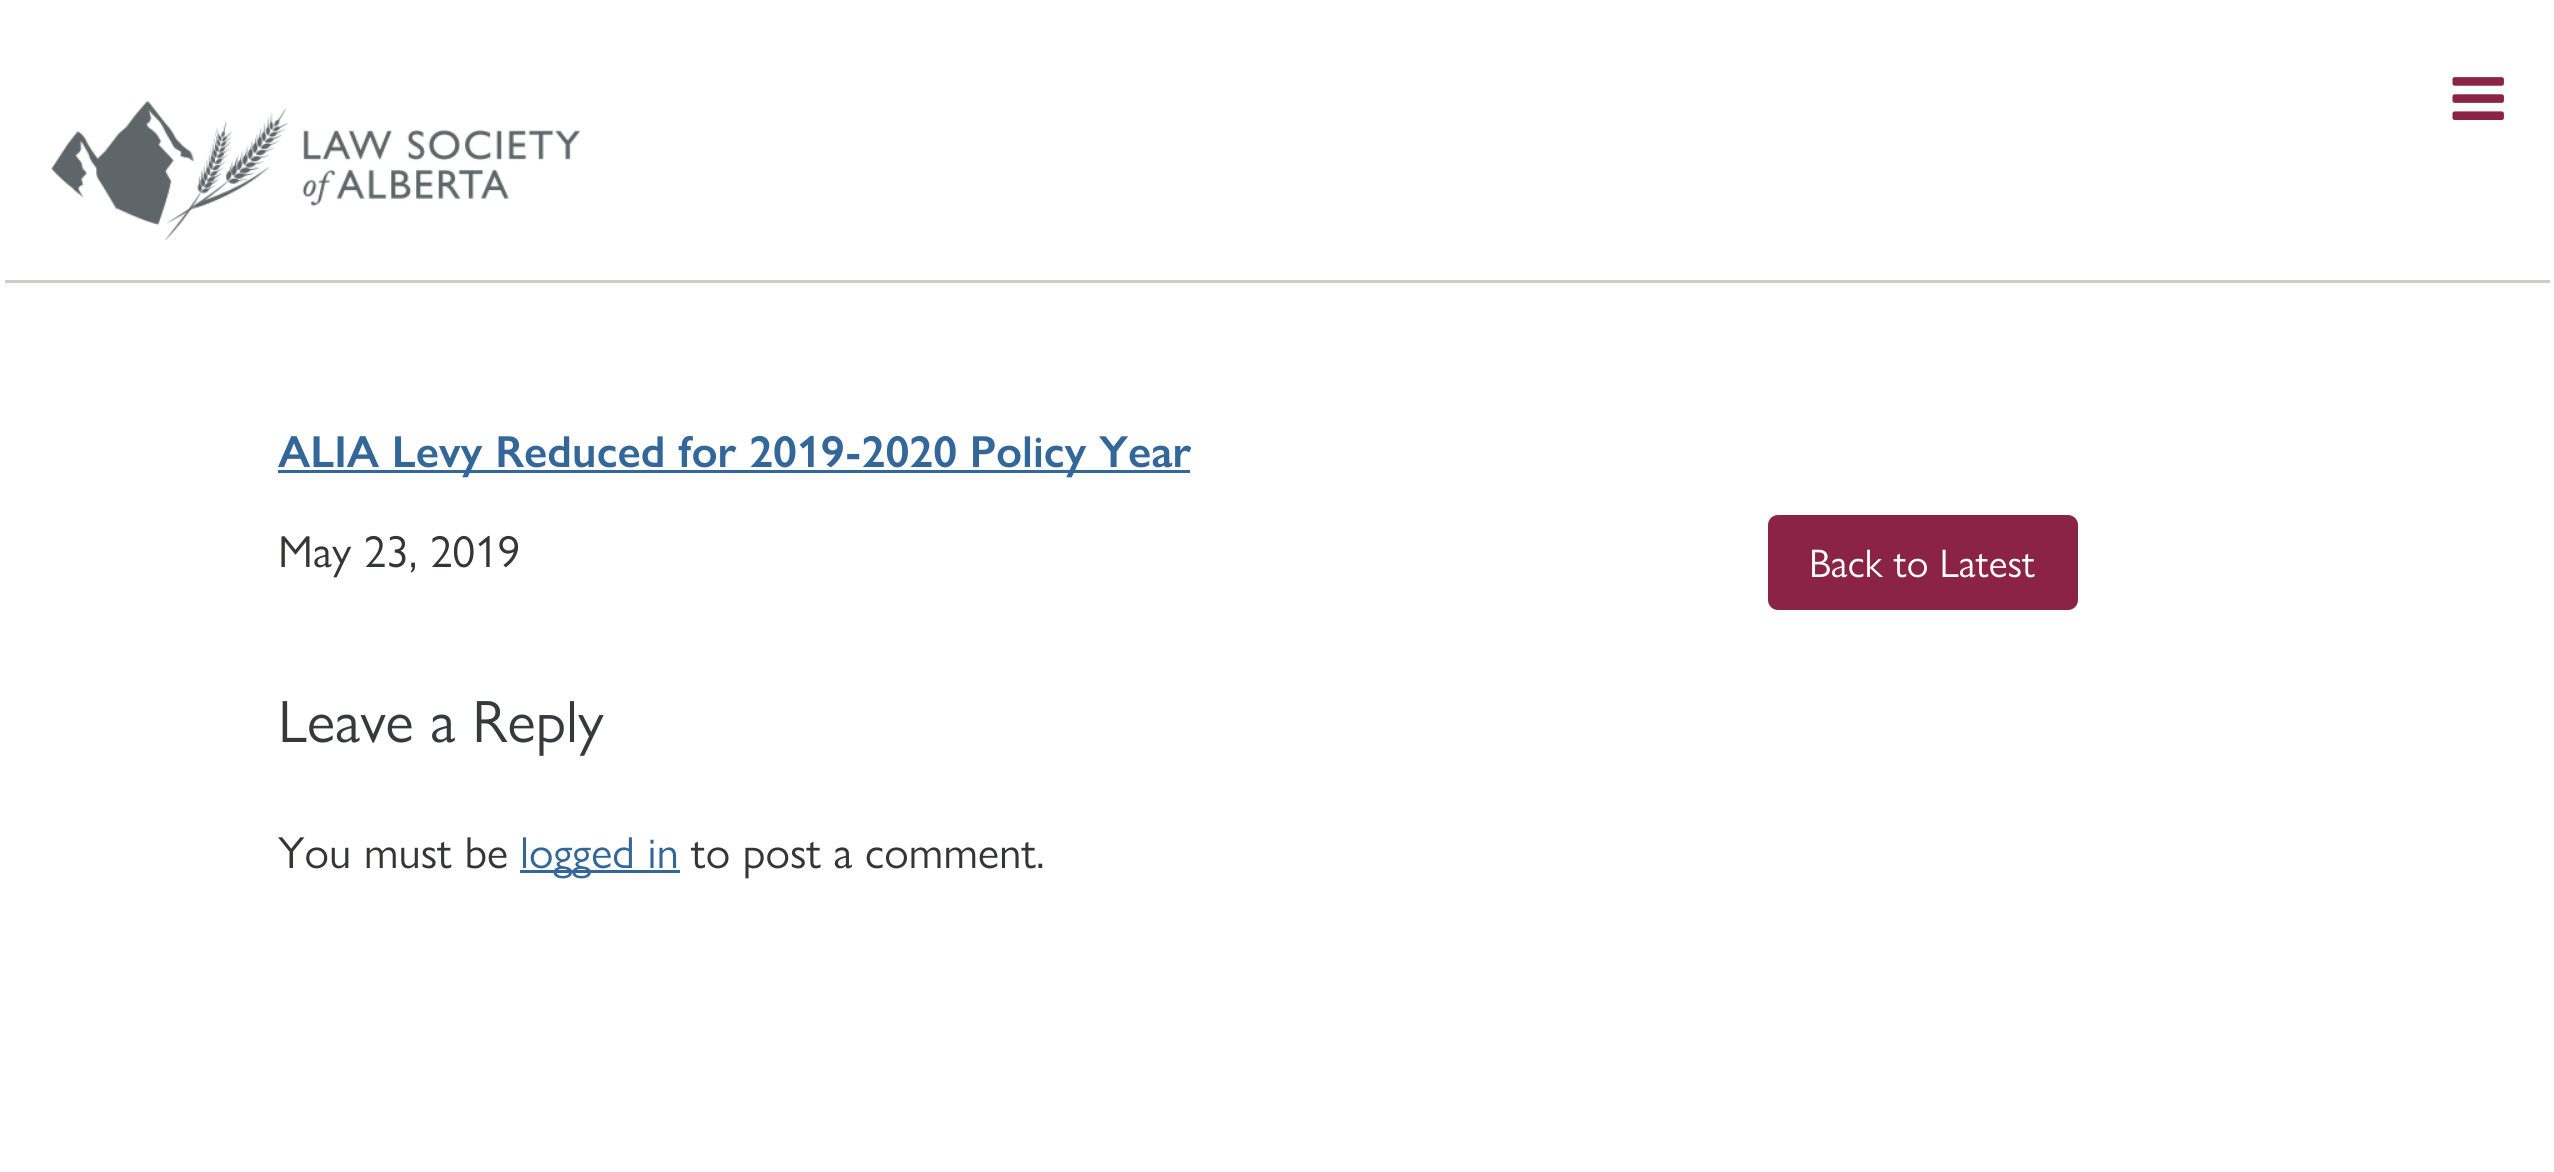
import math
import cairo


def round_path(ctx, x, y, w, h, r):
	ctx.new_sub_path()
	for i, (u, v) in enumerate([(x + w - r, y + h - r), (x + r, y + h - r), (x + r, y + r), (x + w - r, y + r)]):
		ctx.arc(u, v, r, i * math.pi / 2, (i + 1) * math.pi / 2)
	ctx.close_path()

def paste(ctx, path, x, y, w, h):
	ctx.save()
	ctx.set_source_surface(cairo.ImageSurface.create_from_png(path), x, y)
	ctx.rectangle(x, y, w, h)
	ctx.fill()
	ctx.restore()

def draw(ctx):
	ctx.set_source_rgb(1, 1, 1)
	ctx.paint()
	paste(ctx, 'media/1.png', 2452, 77, 52, 43)
	ctx.set_source_rgb(0.808, 0.8, 0.784)
	ctx.rectangle(5, 280, 2545, 3)
	ctx.fill()
	paste(ctx, 'media/2.png', 51, 101, 529, 139)
	ctx.set_source_rgb(0.2, 0.4, 0.6)
	ctx.rectangle(278, 470, 912, 3)
	ctx.fill()
	ctx.select_font_face('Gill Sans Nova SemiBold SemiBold')
	ctx.set_font_size(45)
	ctx.move_to(278, 467)
	ctx.show_text('ALIA Levy Reduced for 2019-2020 Policy Year')
	ctx.select_font_face('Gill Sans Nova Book')
	ctx.set_source_rgb(0.204, 0.212, 0.204)
	ctx.move_to(278, 567)
	ctx.show_text('May 23, 2019')
	ctx.set_source_rgb(0.545, 0.137, 0.275)
	round_path(ctx, 1769.5, 516.5, 307, 92, 8.5)
	ctx.fill_preserve()
	ctx.set_line_width(3)
	ctx.stroke()
	ctx.set_font_size(40)
	ctx.set_source_rgb(1, 1, 1)
	ctx.move_to(1809, 577)
	ctx.show_text('Back to Latest')
	ctx.set_font_size(60)
	ctx.set_source_rgb(0.216, 0.227, 0.235)
	ctx.move_to(278, 742)
	ctx.show_text('Leave a Reply')
	ctx.set_font_size(45)
	ctx.set_source_rgb(0.204, 0.212, 0.204)
	ctx.move_to(278, 868)
	ctx.show_text('You must be')
	ctx.set_source_rgb(0.2, 0.4, 0.6)
	ctx.rectangle(520, 870, 160, 3)
	ctx.fill()
	ctx.move_to(520, 868)
	ctx.show_text('logged in')
	ctx.set_source_rgb(0.204, 0.212, 0.204)
	ctx.move_to(691, 868)
	ctx.show_text('to post a comment.')


surface = cairo.ImageSurface(cairo.FORMAT_RGB24, 2554, 1172)
ctx = cairo.Context(surface)
options = cairo.FontOptions()
options.set_hint_metrics(cairo.HINT_METRICS_OFF)
options.set_hint_style(cairo.HINT_STYLE_NONE)
ctx.set_font_options(options)
ctx.set_miter_limit(4)
draw(ctx)
surface.write_to_png('image.png')
